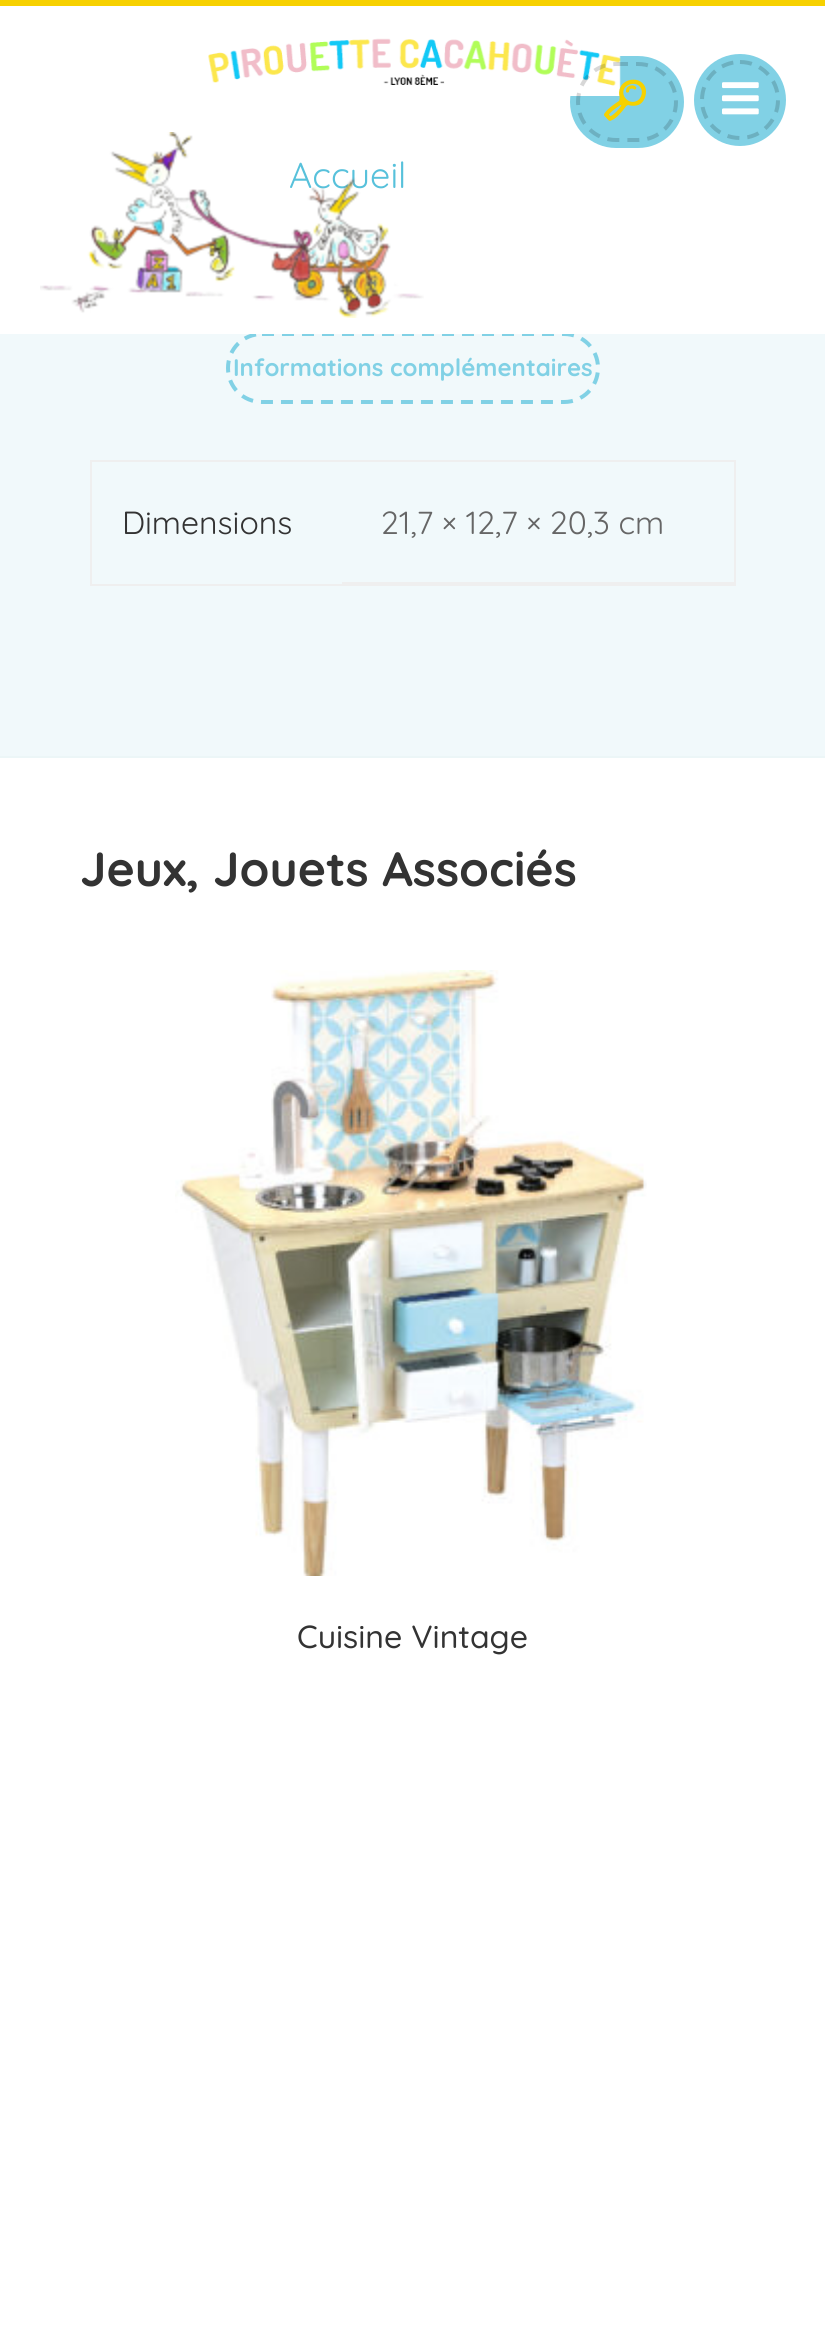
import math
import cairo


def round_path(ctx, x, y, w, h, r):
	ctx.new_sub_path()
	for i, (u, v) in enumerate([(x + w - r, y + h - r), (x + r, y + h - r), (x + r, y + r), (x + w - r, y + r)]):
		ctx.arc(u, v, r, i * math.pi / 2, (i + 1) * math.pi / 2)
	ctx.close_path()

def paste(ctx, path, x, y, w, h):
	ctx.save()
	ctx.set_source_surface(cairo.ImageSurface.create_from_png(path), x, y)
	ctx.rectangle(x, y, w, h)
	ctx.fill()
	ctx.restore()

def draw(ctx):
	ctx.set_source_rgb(1, 1, 1)
	ctx.paint()
	ctx.set_source_rgb(0.945, 0.976, 0.984)
	ctx.rectangle(0, 334, 825, 422)
	ctx.fill()
	ctx.new_path()
	ctx.move_to(262, 334)
	ctx.line_to(564, 334)
	ctx.curve_to(583, 334, 598, 349, 598, 368)
	ctx.curve_to(598, 387, 583, 402, 564, 402)
	ctx.line_to(262, 402)
	ctx.curve_to(243, 402, 228, 387, 228, 368)
	ctx.curve_to(228, 349, 243, 334, 262, 334)
	ctx.close_path()
	ctx.set_source_rgb(0.506, 0.82, 0.898)
	ctx.set_line_width(4)
	ctx.set_dash([12, 8])
	ctx.stroke()
	ctx.set_source_rgb(1, 1, 1)
	ctx.rectangle(250, 332, 325, 2)
	ctx.fill()
	ctx.set_source_rgb(0.965, 0.82, 0)
	ctx.rectangle(0, 0, 825, 6)
	ctx.fill()
	ctx.set_source_rgb(0.506, 0.82, 0.898)
	round_path(ctx, 570, 56, 114, 92, 46)
	ctx.fill()
	paste(ctx, 'media/1.png', 208, 38, 413, 58)
	ctx.new_path()
	ctx.move_to(616, 64)
	ctx.line_to(638, 64)
	ctx.curve_to(659, 64, 676, 81, 676, 102)
	ctx.curve_to(676, 123, 659, 140, 638, 140)
	ctx.line_to(616, 140)
	ctx.curve_to(595, 140, 578, 123, 578, 102)
	ctx.curve_to(578, 81, 595, 64, 616, 64)
	ctx.close_path()
	ctx.set_source_rgba(0, 0, 0, 0.16)
	ctx.stroke()
	paste(ctx, 'media/2.png', 604, 79, 42, 42)
	ctx.set_source_rgb(0.506, 0.82, 0.898)
	ctx.arc(740, 100, 46, 0, 2 * math.pi)
	ctx.fill()
	paste(ctx, 'media/3.png', 722, 82, 37, 33)
	ctx.new_path()
	ctx.move_to(740, 62)
	ctx.curve_to(761, 62, 778, 79, 778, 100)
	ctx.curve_to(778, 121, 761, 138, 740, 138)
	ctx.curve_to(719, 138, 702, 121, 702, 100)
	ctx.curve_to(702, 79, 719, 62, 740, 62)
	ctx.close_path()
	ctx.set_source_rgb(0.424, 0.69, 0.753)
	ctx.stroke()
	ctx.select_font_face('Quicksand')
	ctx.set_font_size(36)
	ctx.set_source_rgb(0.341, 0.757, 0.859)
	ctx.move_to(289, 188)
	ctx.show_text('Accueil')
	paste(ctx, 'media/4.png', 40, 132, 384, 186)
	ctx.set_source_rgb(0.925, 0.961, 0.965)
	ctx.rectangle(0, 756, 825, 2)
	ctx.fill()
	ctx.select_font_face('Quicksand', cairo.FONT_SLANT_NORMAL, cairo.FONT_WEIGHT_BOLD)
	ctx.set_font_size(24)
	ctx.set_source_rgb(0.506, 0.82, 0.898)
	ctx.move_to(233, 376)
	ctx.show_text('Informations complémentaires')
	ctx.rectangle(91, 461, 644, 124)
	ctx.set_source_rgb(0.937, 0.937, 0.937)
	ctx.set_line_width(2)
	ctx.set_dash([])
	ctx.stroke()
	ctx.select_font_face('Quicksand')
	ctx.set_font_size(32)
	ctx.set_source_rgb(0.2, 0.2, 0.2)
	ctx.move_to(122, 534)
	ctx.show_text('Dimensions')
	ctx.set_source_rgb(0.937, 0.937, 0.937)
	ctx.rectangle(342, 582, 392, 2)
	ctx.fill()
	ctx.set_source_rgb(0.4, 0.4, 0.4)
	ctx.move_to(381, 534)
	ctx.show_text('21,7 × 12,7 × 20,3 cm')
	ctx.select_font_face('Quicksand', cairo.FONT_SLANT_NORMAL, cairo.FONT_WEIGHT_BOLD)
	ctx.set_font_size(48)
	ctx.set_source_rgb(0.2, 0.2, 0.2)
	ctx.move_to(80, 886)
	ctx.show_text('Jeux, Jouets Associés')
	paste(ctx, 'media/5.png', 175, 970, 472, 606)
	ctx.select_font_face('Quicksand Medium')
	ctx.set_font_size(32)
	ctx.move_to(297, 1648)
	ctx.show_text('Cuisine Vintage')


surface = cairo.ImageSurface(cairo.FORMAT_RGB24, 825, 2332)
ctx = cairo.Context(surface)
options = cairo.FontOptions()
options.set_hint_metrics(cairo.HINT_METRICS_OFF)
options.set_hint_style(cairo.HINT_STYLE_NONE)
ctx.set_font_options(options)
ctx.set_miter_limit(4)
draw(ctx)
surface.write_to_png('image.png')
